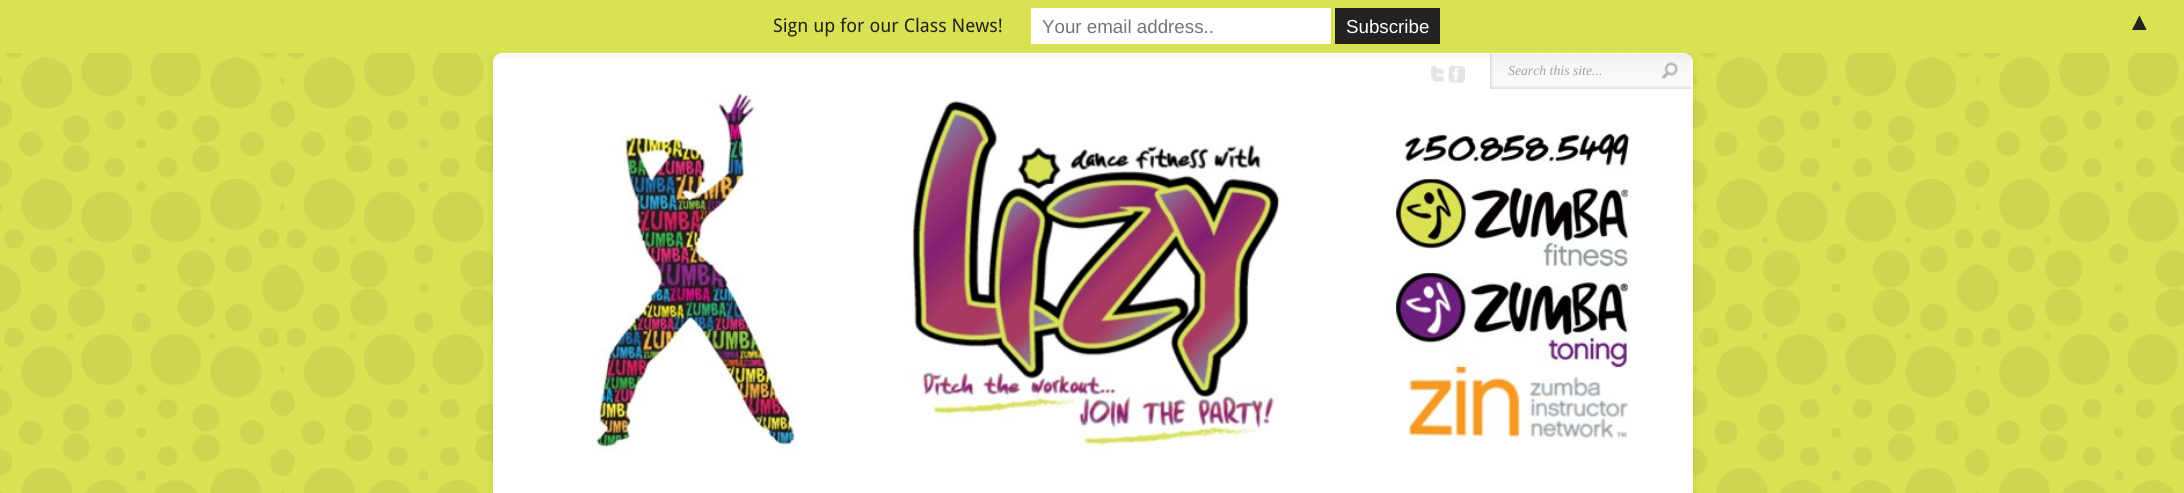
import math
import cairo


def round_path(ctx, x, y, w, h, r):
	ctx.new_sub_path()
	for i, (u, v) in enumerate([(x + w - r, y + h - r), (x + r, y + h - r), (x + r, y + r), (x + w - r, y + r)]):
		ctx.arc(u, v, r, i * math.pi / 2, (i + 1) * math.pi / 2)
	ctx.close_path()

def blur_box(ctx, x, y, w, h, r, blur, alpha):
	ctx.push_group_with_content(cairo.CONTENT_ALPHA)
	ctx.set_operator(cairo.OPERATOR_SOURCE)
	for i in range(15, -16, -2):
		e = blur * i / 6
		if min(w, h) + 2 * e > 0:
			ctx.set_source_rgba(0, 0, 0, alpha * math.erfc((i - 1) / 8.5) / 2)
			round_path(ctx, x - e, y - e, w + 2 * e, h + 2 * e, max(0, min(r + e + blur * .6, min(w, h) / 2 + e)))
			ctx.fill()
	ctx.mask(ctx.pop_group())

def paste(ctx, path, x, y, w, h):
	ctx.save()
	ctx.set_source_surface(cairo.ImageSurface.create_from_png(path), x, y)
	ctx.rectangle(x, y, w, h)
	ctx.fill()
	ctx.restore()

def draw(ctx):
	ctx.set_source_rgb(0.847, 0.886, 0.322)
	ctx.paint()
	paste(ctx, 'media/1.png', 0, 53, 2184, 440)
	ctx.set_source_rgb(0, 0, 0)
	blur_box(ctx, 493, 53, 1200, 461, 9, 4, 0.1)
	ctx.set_source_rgb(0.847, 0.886, 0.322)
	ctx.rectangle(493, 48, 1200, 5)
	ctx.fill()
	ctx.select_font_face('Droid Sans')
	ctx.set_font_size(18.75)
	ctx.set_source_rgb(0.133, 0.133, 0.133)
	ctx.move_to(773, 32)
	ctx.show_text('Sign up for our Class News!')
	ctx.set_source_rgb(1, 1, 1)
	ctx.rectangle(1031, 8, 300, 36)
	ctx.fill()
	ctx.select_font_face('Liberation Sans')
	ctx.set_source_rgb(0.459, 0.459, 0.459)
	ctx.move_to(1042, 33)
	ctx.show_text('Your email address..')
	ctx.set_source_rgb(0.133, 0.133, 0.133)
	ctx.rectangle(1335, 8, 105, 36)
	ctx.fill()
	ctx.set_source_rgb(1, 1, 1)
	ctx.move_to(1346, 33)
	ctx.show_text('Subscribe')
	ctx.set_font_size(25)
	ctx.set_source_rgb(0.133, 0.133, 0.133)
	ctx.move_to(2127, 30)
	ctx.show_text('▲')
	ctx.set_source_rgb(1, 1, 1)
	round_path(ctx, 493, 53, 1200, 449, 9)
	ctx.fill()
	paste(ctx, 'media/2.png', 493, 54, 1199, 5)
	paste(ctx, 'media/3.png', 1431, 65, 13, 17)
	paste(ctx, 'media/4.png', 1448, 65, 17, 18)
	paste(ctx, 'media/5.png', 1490, 53, 202, 36)
	ctx.select_font_face('Liberation Serif', cairo.FONT_SLANT_ITALIC)
	ctx.set_font_size(13.75)
	ctx.set_source_rgb(0.639, 0.639, 0.639)
	ctx.move_to(1508, 75)
	ctx.show_text('Search this site...')
	paste(ctx, 'media/6.png', 1661, 62, 18, 18)
	paste(ctx, 'media/7.png', 592, 90, 1039, 365)


surface = cairo.ImageSurface(cairo.FORMAT_RGB24, 2184, 493)
ctx = cairo.Context(surface)
options = cairo.FontOptions()
options.set_hint_metrics(cairo.HINT_METRICS_OFF)
options.set_hint_style(cairo.HINT_STYLE_NONE)
ctx.set_font_options(options)
ctx.set_miter_limit(4)
draw(ctx)
surface.write_to_png('image.png')
